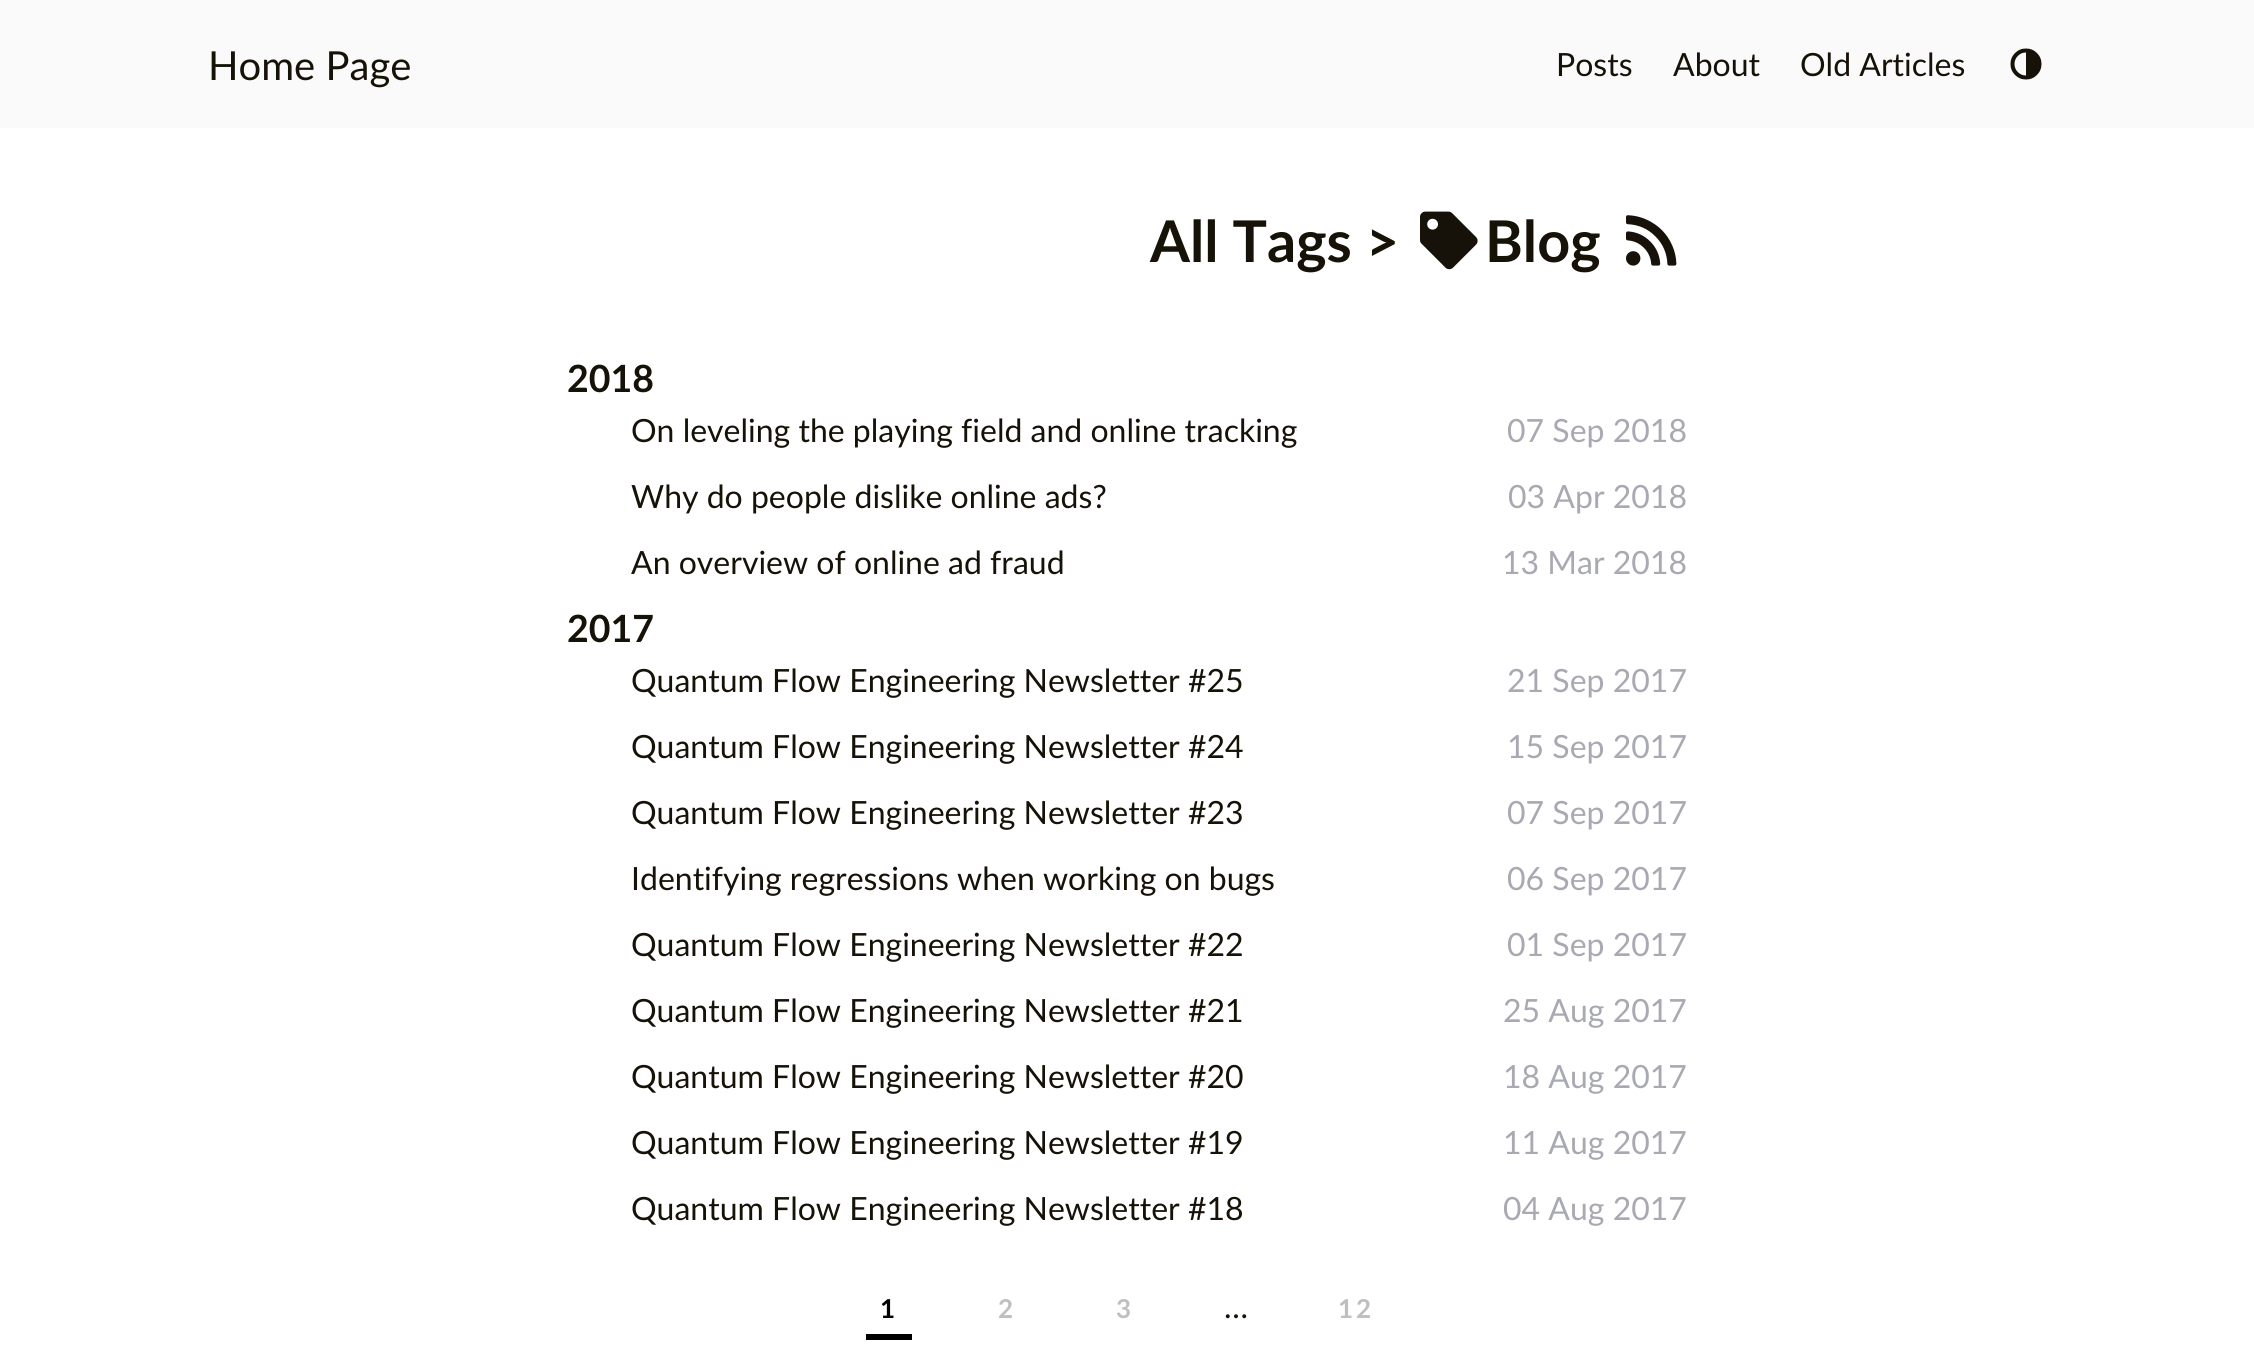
import math
import cairo


def write_spaced(ctx, x, y, s, letter, word):
	ctx.move_to(x, y)
	for ch in s:
		ctx.show_text(ch)
		ctx.rel_move_to(letter + word * (ch == ' '), 0)

def paste(ctx, path, x, y, w, h):
	ctx.save()
	ctx.set_source_surface(cairo.ImageSurface.create_from_png(path), x, y)
	ctx.rectangle(x, y, w, h)
	ctx.fill()
	ctx.restore()

def draw(ctx):
	ctx.set_source_rgb(1, 1, 1)
	ctx.paint()
	ctx.set_source_rgb(0.98, 0.98, 0.98)
	ctx.rectangle(0, 0, 2254, 128)
	ctx.fill()
	ctx.select_font_face('Lato')
	ctx.set_font_size(40)
	ctx.set_source_rgb(0.086, 0.071, 0.035)
	ctx.move_to(208, 80)
	ctx.show_text('Home Page')
	ctx.set_font_size(32)
	for x, y, s in [
		(1556, 76, 'Posts'),
		(1673, 76, 'About'),
		(1800, 76, 'Old Articles'),
	]:
		ctx.move_to(x, y)
		ctx.show_text(s)
	paste(ctx, 'media/1.png', 2010, 48, 32, 32)
	ctx.select_font_face('Lato', cairo.FONT_SLANT_NORMAL, cairo.FONT_WEIGHT_BOLD)
	ctx.set_font_size(57.5)
	ctx.move_to(1150, 262)
	ctx.show_text('All Tags >')
	paste(ctx, 'media/2.png', 1420, 211, 58, 59)
	ctx.move_to(1485, 262)
	ctx.show_text('Blog')
	paste(ctx, 'media/3.png', 1626, 215, 51, 51)
	ctx.set_font_size(37.5)
	ctx.move_to(567, 392)
	ctx.show_text('2018')
	ctx.select_font_face('Lato')
	ctx.set_font_size(32)
	ctx.move_to(631, 442)
	ctx.show_text('On leveling the playing field and online tracking')
	ctx.set_source_rgb(0.663, 0.663, 0.702)
	ctx.move_to(1507, 442)
	ctx.show_text('07 Sep 2018')
	ctx.set_source_rgb(0.086, 0.071, 0.035)
	ctx.move_to(631, 508)
	ctx.show_text('Why do people dislike online ads?')
	ctx.set_source_rgb(0.663, 0.663, 0.702)
	ctx.move_to(1508, 508)
	ctx.show_text('03 Apr 2018')
	ctx.set_source_rgb(0.086, 0.071, 0.035)
	ctx.move_to(631, 574)
	ctx.show_text('An overview of online ad fraud')
	ctx.set_source_rgb(0.663, 0.663, 0.702)
	ctx.move_to(1502, 574)
	ctx.show_text('13 Mar 2018')
	ctx.select_font_face('Lato', cairo.FONT_SLANT_NORMAL, cairo.FONT_WEIGHT_BOLD)
	ctx.set_font_size(37.5)
	ctx.set_source_rgb(0.086, 0.071, 0.035)
	ctx.move_to(567, 642)
	ctx.show_text('2017')
	ctx.select_font_face('Lato')
	ctx.set_font_size(32)
	ctx.move_to(631, 692)
	ctx.show_text('Quantum Flow Engineering Newsletter #25')
	ctx.set_source_rgb(0.663, 0.663, 0.702)
	ctx.move_to(1507, 692)
	ctx.show_text('21 Sep 2017')
	ctx.set_source_rgb(0.086, 0.071, 0.035)
	ctx.move_to(631, 758)
	ctx.show_text('Quantum Flow Engineering Newsletter #24')
	ctx.set_source_rgb(0.663, 0.663, 0.702)
	ctx.move_to(1507, 758)
	ctx.show_text('15 Sep 2017')
	ctx.set_source_rgb(0.086, 0.071, 0.035)
	ctx.move_to(631, 824)
	ctx.show_text('Quantum Flow Engineering Newsletter #23')
	ctx.set_source_rgb(0.663, 0.663, 0.702)
	ctx.move_to(1507, 824)
	ctx.show_text('07 Sep 2017')
	ctx.set_source_rgb(0.086, 0.071, 0.035)
	ctx.move_to(631, 890)
	ctx.show_text('Identifying regressions when working on bugs')
	ctx.set_source_rgb(0.663, 0.663, 0.702)
	ctx.move_to(1507, 890)
	ctx.show_text('06 Sep 2017')
	ctx.set_source_rgb(0.086, 0.071, 0.035)
	ctx.move_to(631, 956)
	ctx.show_text('Quantum Flow Engineering Newsletter #22')
	ctx.set_source_rgb(0.663, 0.663, 0.702)
	ctx.move_to(1507, 956)
	ctx.show_text('01 Sep 2017')
	ctx.set_source_rgb(0.086, 0.071, 0.035)
	ctx.move_to(631, 1022)
	ctx.show_text('Quantum Flow Engineering Newsletter #21')
	ctx.set_source_rgb(0.663, 0.663, 0.702)
	ctx.move_to(1503, 1022)
	ctx.show_text('25 Aug 2017')
	ctx.set_source_rgb(0.086, 0.071, 0.035)
	ctx.move_to(631, 1088)
	ctx.show_text('Quantum Flow Engineering Newsletter #20')
	ctx.set_source_rgb(0.663, 0.663, 0.702)
	ctx.move_to(1503, 1088)
	ctx.show_text('18 Aug 2017')
	ctx.set_source_rgb(0.086, 0.071, 0.035)
	ctx.move_to(631, 1154)
	ctx.show_text('Quantum Flow Engineering Newsletter #19')
	ctx.set_source_rgb(0.663, 0.663, 0.702)
	ctx.move_to(1503, 1154)
	ctx.show_text('11 Aug 2017')
	ctx.set_source_rgb(0.086, 0.071, 0.035)
	ctx.move_to(631, 1220)
	ctx.show_text('Quantum Flow Engineering Newsletter #18')
	ctx.set_source_rgb(0.663, 0.663, 0.702)
	ctx.move_to(1503, 1220)
	ctx.show_text('04 Aug 2017')
	ctx.select_font_face('Lato', cairo.FONT_SLANT_NORMAL, cairo.FONT_WEIGHT_BOLD)
	ctx.set_font_size(26)
	ctx.set_source_rgb(0, 0, 0)
	write_spaced(ctx, 880, 1318, '1', 3, 0)
	ctx.rectangle(866, 1334, 46, 6)
	ctx.fill()
	ctx.set_source_rgb(0.749, 0.749, 0.749)
	write_spaced(ctx, 998, 1318, '2', 3, 0)
	write_spaced(ctx, 1116, 1318, '3', 3, 0)
	ctx.select_font_face('Lato')
	ctx.set_font_size(32)
	ctx.set_source_rgb(0.086, 0.071, 0.035)
	ctx.move_to(1224, 1318)
	ctx.show_text('…')
	ctx.select_font_face('Lato', cairo.FONT_SLANT_NORMAL, cairo.FONT_WEIGHT_BOLD)
	ctx.set_font_size(26)
	ctx.set_source_rgb(0.749, 0.749, 0.749)
	write_spaced(ctx, 1338, 1318, '12', 3, 0)


surface = cairo.ImageSurface(cairo.FORMAT_RGB24, 2254, 1370)
ctx = cairo.Context(surface)
options = cairo.FontOptions()
options.set_hint_metrics(cairo.HINT_METRICS_OFF)
options.set_hint_style(cairo.HINT_STYLE_NONE)
ctx.set_font_options(options)
ctx.set_miter_limit(4)
draw(ctx)
surface.write_to_png('image.png')
